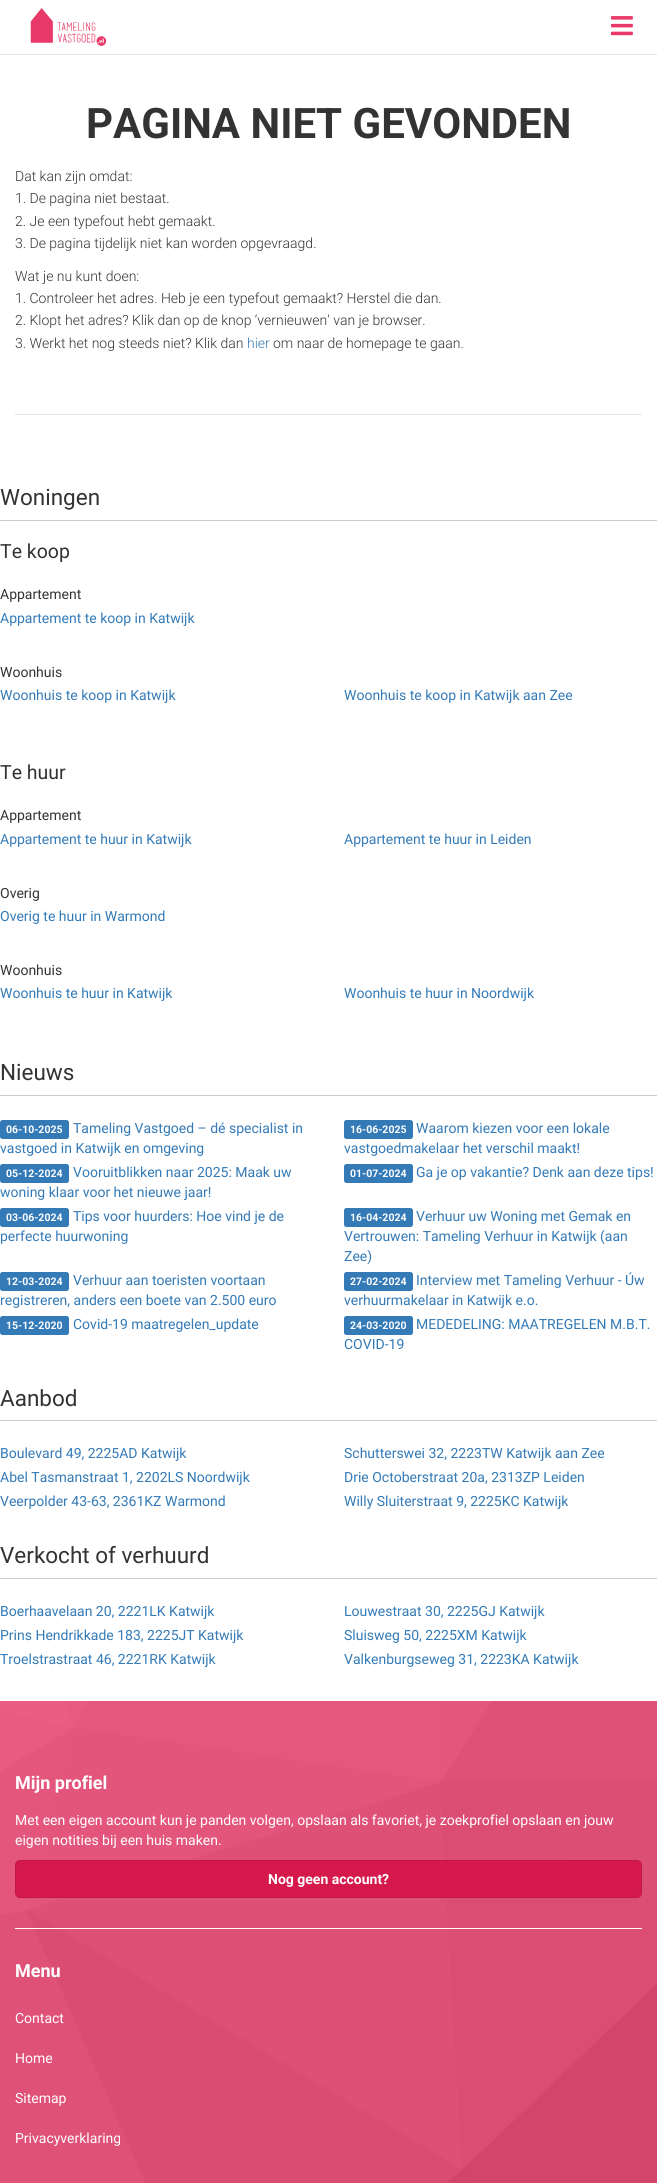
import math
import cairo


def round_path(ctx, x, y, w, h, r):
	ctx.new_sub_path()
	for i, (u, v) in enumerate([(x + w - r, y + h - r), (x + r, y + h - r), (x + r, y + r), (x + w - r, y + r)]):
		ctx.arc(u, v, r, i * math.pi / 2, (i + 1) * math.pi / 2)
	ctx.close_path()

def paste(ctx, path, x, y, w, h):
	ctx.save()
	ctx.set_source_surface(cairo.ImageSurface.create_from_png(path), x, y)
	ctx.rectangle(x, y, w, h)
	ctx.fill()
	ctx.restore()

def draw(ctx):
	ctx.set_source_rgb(1, 1, 1)
	ctx.paint()
	ctx.set_source_rgb(0.902, 0.902, 0.902)
	ctx.rectangle(0, 54, 657, 1)
	ctx.fill()
	paste(ctx, 'media/1.png', 30, 8, 77, 38)
	paste(ctx, 'media/2.png', 611, 16, 22, 20)
	ctx.set_source_rgb(0.898, 0.898, 0.898)
	ctx.rectangle(15, 414, 627, 1)
	ctx.fill()
	ctx.select_font_face('Roboto', cairo.FONT_SLANT_NORMAL, cairo.FONT_WEIGHT_BOLD)
	ctx.set_font_size(42)
	ctx.set_source_rgb(0.2, 0.2, 0.2)
	ctx.move_to(86, 138)
	ctx.show_text('PAGINA NIET GEVONDEN')
	ctx.select_font_face('Roboto Light')
	ctx.set_font_size(14)
	for x, y, s in [
		(15, 181, 'Dat kan zijn omdat:'),
		(15, 203, '1. De pagina niet bestaat.'),
		(15, 226, '2. Je een typefout hebt gemaakt.'),
		(15, 248, '3. De pagina tijdelijk niet kan worden opgevraagd.'),
		(15, 281, 'Wat je nu kunt doen:'),
		(15, 303, '1. Controleer het adres. Heb je een typefout gemaakt? Herstel die dan.'),
		(15, 325, '2. Klopt het adres? Klik dan op de knop ‘vernieuwen’ van je browser.'),
		(15, 348, '3. Werkt het nog steeds niet? Klik dan'),
	]:
		ctx.move_to(x, y)
		ctx.show_text(s)
	ctx.set_source_rgb(0.2, 0.478, 0.718)
	ctx.move_to(247, 348)
	ctx.show_text('hier')
	ctx.set_source_rgb(0.2, 0.2, 0.2)
	ctx.move_to(273, 348)
	ctx.show_text('om naar de homepage te gaan.')
	ctx.set_source_rgb(0.8, 0.8, 0.8)
	ctx.rectangle(0, 520, 657, 1)
	ctx.fill()
	ctx.select_font_face('Roboto')
	ctx.set_font_size(22.5)
	ctx.set_source_rgb(0.2, 0.2, 0.2)
	ctx.move_to(0, 505)
	ctx.show_text('Woningen')
	ctx.set_font_size(19.5)
	ctx.move_to(0, 558)
	ctx.show_text('Te koop')
	ctx.set_font_size(14)
	ctx.move_to(0, 599)
	ctx.show_text('Appartement')
	ctx.set_source_rgb(0.2, 0.478, 0.718)
	ctx.move_to(0, 623)
	ctx.show_text('Appartement te koop in Katwijk')
	ctx.set_source_rgb(0.2, 0.2, 0.2)
	ctx.move_to(0, 677)
	ctx.show_text('Woonhuis')
	ctx.set_source_rgb(0.2, 0.478, 0.718)
	ctx.move_to(0, 700)
	ctx.show_text('Woonhuis te koop in Katwijk')
	ctx.move_to(344, 700)
	ctx.show_text('Woonhuis te koop in Katwijk aan Zee')
	ctx.set_font_size(19.5)
	ctx.set_source_rgb(0.2, 0.2, 0.2)
	ctx.move_to(0, 779)
	ctx.show_text('Te huur')
	ctx.set_font_size(14)
	ctx.move_to(0, 820)
	ctx.show_text('Appartement')
	ctx.set_source_rgb(0.2, 0.478, 0.718)
	ctx.move_to(0, 844)
	ctx.show_text('Appartement te huur in Katwijk')
	ctx.move_to(344, 844)
	ctx.show_text('Appartement te huur in Leiden')
	ctx.set_source_rgb(0.2, 0.2, 0.2)
	ctx.move_to(0, 898)
	ctx.show_text('Overig')
	ctx.set_source_rgb(0.2, 0.478, 0.718)
	ctx.move_to(0, 921)
	ctx.show_text('Overig te huur in Warmond')
	ctx.set_source_rgb(0.2, 0.2, 0.2)
	ctx.move_to(0, 975)
	ctx.show_text('Woonhuis')
	ctx.set_source_rgb(0.2, 0.478, 0.718)
	ctx.move_to(0, 998)
	ctx.show_text('Woonhuis te huur in Katwijk')
	ctx.move_to(344, 998)
	ctx.show_text('Woonhuis te huur in Noordwijk')
	ctx.set_source_rgb(0.8, 0.8, 0.8)
	ctx.rectangle(0, 1095, 657, 1)
	ctx.fill()
	ctx.set_font_size(22.5)
	ctx.set_source_rgb(0.2, 0.2, 0.2)
	ctx.move_to(0, 1080)
	ctx.show_text('Nieuws')
	ctx.set_source_rgb(0.2, 0.478, 0.718)
	round_path(ctx, 0, 1120, 69, 19, 2.5)
	ctx.fill()
	ctx.select_font_face('Roboto', cairo.FONT_SLANT_NORMAL, cairo.FONT_WEIGHT_BOLD)
	ctx.set_font_size(10.5)
	ctx.set_source_rgb(1, 1, 1)
	ctx.move_to(6, 1133)
	ctx.show_text('06-10-2025')
	ctx.select_font_face('Roboto')
	ctx.set_font_size(14)
	ctx.set_source_rgb(0.2, 0.478, 0.718)
	ctx.move_to(73, 1133)
	ctx.show_text('Tameling Vastgoed – dé specialist in')
	ctx.move_to(0, 1153)
	ctx.show_text('vastgoed in Katwijk en omgeving')
	round_path(ctx, 344, 1120, 69, 19, 2.5)
	ctx.fill()
	ctx.select_font_face('Roboto', cairo.FONT_SLANT_NORMAL, cairo.FONT_WEIGHT_BOLD)
	ctx.set_font_size(10.5)
	ctx.set_source_rgb(1, 1, 1)
	ctx.move_to(350, 1133)
	ctx.show_text('16-06-2025')
	ctx.select_font_face('Roboto')
	ctx.set_font_size(14)
	ctx.set_source_rgb(0.2, 0.478, 0.718)
	ctx.move_to(416, 1133)
	ctx.show_text('Waarom kiezen voor een lokale')
	ctx.move_to(344, 1153)
	ctx.show_text('vastgoedmakelaar het verschil maakt!')
	round_path(ctx, 0, 1164, 69, 19, 2.5)
	ctx.fill()
	ctx.select_font_face('Roboto', cairo.FONT_SLANT_NORMAL, cairo.FONT_WEIGHT_BOLD)
	ctx.set_font_size(10.5)
	ctx.set_source_rgb(1, 1, 1)
	ctx.move_to(6, 1177)
	ctx.show_text('05-12-2024')
	ctx.select_font_face('Roboto')
	ctx.set_font_size(14)
	ctx.set_source_rgb(0.2, 0.478, 0.718)
	ctx.move_to(73, 1177)
	ctx.show_text('Vooruitblikken naar 2025: Maak uw')
	ctx.move_to(0, 1197)
	ctx.show_text('woning klaar voor het nieuwe jaar!')
	round_path(ctx, 344, 1164, 69, 19, 2.5)
	ctx.fill()
	ctx.select_font_face('Roboto', cairo.FONT_SLANT_NORMAL, cairo.FONT_WEIGHT_BOLD)
	ctx.set_font_size(10.5)
	ctx.set_source_rgb(1, 1, 1)
	ctx.move_to(350, 1177)
	ctx.show_text('01-07-2024')
	ctx.select_font_face('Roboto')
	ctx.set_font_size(14)
	ctx.set_source_rgb(0.2, 0.478, 0.718)
	ctx.move_to(416, 1177)
	ctx.show_text('Ga je op vakantie? Denk aan deze tips!')
	round_path(ctx, 0, 1208, 69, 19, 2.5)
	ctx.fill()
	ctx.select_font_face('Roboto', cairo.FONT_SLANT_NORMAL, cairo.FONT_WEIGHT_BOLD)
	ctx.set_font_size(10.5)
	ctx.set_source_rgb(1, 1, 1)
	ctx.move_to(6, 1221)
	ctx.show_text('03-06-2024')
	ctx.select_font_face('Roboto')
	ctx.set_font_size(14)
	ctx.set_source_rgb(0.2, 0.478, 0.718)
	ctx.move_to(73, 1221)
	ctx.show_text('Tips voor huurders: Hoe vind je de')
	ctx.move_to(0, 1241)
	ctx.show_text('perfecte huurwoning')
	round_path(ctx, 344, 1208, 69, 19, 2.5)
	ctx.fill()
	ctx.select_font_face('Roboto', cairo.FONT_SLANT_NORMAL, cairo.FONT_WEIGHT_BOLD)
	ctx.set_font_size(10.5)
	ctx.set_source_rgb(1, 1, 1)
	ctx.move_to(350, 1221)
	ctx.show_text('16-04-2024')
	ctx.select_font_face('Roboto')
	ctx.set_font_size(14)
	ctx.set_source_rgb(0.2, 0.478, 0.718)
	for x, y, s in [
		(416, 1221, 'Verhuur uw Woning met Gemak en'),
		(344, 1241, 'Vertrouwen: Tameling Verhuur in Katwijk (aan'),
		(344, 1261, 'Zee)'),
	]:
		ctx.move_to(x, y)
		ctx.show_text(s)
	round_path(ctx, 0, 1272, 69, 19, 2.5)
	ctx.fill()
	ctx.select_font_face('Roboto', cairo.FONT_SLANT_NORMAL, cairo.FONT_WEIGHT_BOLD)
	ctx.set_font_size(10.5)
	ctx.set_source_rgb(1, 1, 1)
	ctx.move_to(6, 1285)
	ctx.show_text('12-03-2024')
	ctx.select_font_face('Roboto')
	ctx.set_font_size(14)
	ctx.set_source_rgb(0.2, 0.478, 0.718)
	ctx.move_to(73, 1285)
	ctx.show_text('Verhuur aan toeristen voortaan')
	ctx.move_to(0, 1305)
	ctx.show_text('registreren, anders een boete van 2.500 euro')
	round_path(ctx, 344, 1272, 69, 19, 2.5)
	ctx.fill()
	ctx.select_font_face('Roboto', cairo.FONT_SLANT_NORMAL, cairo.FONT_WEIGHT_BOLD)
	ctx.set_font_size(10.5)
	ctx.set_source_rgb(1, 1, 1)
	ctx.move_to(350, 1285)
	ctx.show_text('27-02-2024')
	ctx.select_font_face('Roboto')
	ctx.set_font_size(14)
	ctx.set_source_rgb(0.2, 0.478, 0.718)
	ctx.move_to(416, 1285)
	ctx.show_text('Interview met Tameling Verhuur - Úw')
	ctx.move_to(344, 1305)
	ctx.show_text('verhuurmakelaar in Katwijk e.o.')
	round_path(ctx, 0, 1316, 69, 19, 2.5)
	ctx.fill()
	ctx.select_font_face('Roboto', cairo.FONT_SLANT_NORMAL, cairo.FONT_WEIGHT_BOLD)
	ctx.set_font_size(10.5)
	ctx.set_source_rgb(1, 1, 1)
	ctx.move_to(6, 1329)
	ctx.show_text('15-12-2020')
	ctx.select_font_face('Roboto')
	ctx.set_font_size(14)
	ctx.set_source_rgb(0.2, 0.478, 0.718)
	ctx.move_to(73, 1329)
	ctx.show_text('Covid-19 maatregelen_update')
	round_path(ctx, 344, 1316, 69, 19, 2.5)
	ctx.fill()
	ctx.select_font_face('Roboto', cairo.FONT_SLANT_NORMAL, cairo.FONT_WEIGHT_BOLD)
	ctx.set_font_size(10.5)
	ctx.set_source_rgb(1, 1, 1)
	ctx.move_to(350, 1329)
	ctx.show_text('24-03-2020')
	ctx.select_font_face('Roboto')
	ctx.set_font_size(14)
	ctx.set_source_rgb(0.2, 0.478, 0.718)
	ctx.move_to(416, 1329)
	ctx.show_text('MEDEDELING: MAATREGELEN M.B.T.')
	ctx.move_to(344, 1349)
	ctx.show_text('COVID-19')
	ctx.set_source_rgb(0.8, 0.8, 0.8)
	ctx.rectangle(0, 1420, 657, 1)
	ctx.fill()
	ctx.set_font_size(22.5)
	ctx.set_source_rgb(0.2, 0.2, 0.2)
	ctx.move_to(0, 1406)
	ctx.show_text('Aanbod')
	ctx.set_font_size(14)
	ctx.set_source_rgb(0.2, 0.478, 0.718)
	for x, y, s in [
		(0, 1458, 'Boulevard 49, 2225AD Katwijk'),
		(344, 1458, 'Schutterswei 32, 2223TW Katwijk aan Zee'),
		(0, 1482, 'Abel Tasmanstraat 1, 2202LS Noordwijk'),
		(344, 1482, 'Drie Octoberstraat 20a, 2313ZP Leiden'),
		(0, 1506, 'Veerpolder 43-63, 2361KZ Warmond'),
		(344, 1506, 'Willy Sluiterstraat 9, 2225KC Katwijk'),
	]:
		ctx.move_to(x, y)
		ctx.show_text(s)
	ctx.set_source_rgb(0.8, 0.8, 0.8)
	ctx.rectangle(0, 1578, 657, 1)
	ctx.fill()
	ctx.set_font_size(22.5)
	ctx.set_source_rgb(0.2, 0.2, 0.2)
	ctx.move_to(0, 1563)
	ctx.show_text('Verkocht of verhuurd')
	ctx.set_font_size(14)
	ctx.set_source_rgb(0.2, 0.478, 0.718)
	for x, y, s in [
		(0, 1616, 'Boerhaavelaan 20, 2221LK Katwijk'),
		(344, 1616, 'Louwestraat 30, 2225GJ Katwijk'),
		(0, 1640, 'Prins Hendrikkade 183, 2225JT Katwijk'),
		(344, 1640, 'Sluisweg 50, 2225XM Katwijk'),
		(0, 1664, 'Troelstrastraat 46, 2221RK Katwijk'),
		(344, 1664, 'Valkenburgseweg 31, 2223KA Katwijk'),
	]:
		ctx.move_to(x, y)
		ctx.show_text(s)
	ctx.set_source_rgb(0.937, 0.004, 0.251)
	ctx.rectangle(0, 1701, 657, 482)
	ctx.fill()
	paste(ctx, 'media/3.png', 0, 1701, 657, 482)
	ctx.set_source_rgb(1, 1, 1)
	ctx.rectangle(15, 1928, 627, 1)
	ctx.fill()
	ctx.select_font_face('Roboto', cairo.FONT_SLANT_NORMAL, cairo.FONT_WEIGHT_BOLD)
	ctx.set_font_size(18)
	ctx.move_to(15, 1789)
	ctx.show_text('Mijn profiel')
	ctx.select_font_face('Roboto')
	ctx.set_font_size(14)
	ctx.move_to(15, 1825)
	ctx.show_text('Met een eigen account kun je panden volgen, opslaan als favoriet, je zoekprofiel opslaan en jouw')
	ctx.move_to(15, 1845)
	ctx.show_text('eigen notities bij een huis maken.')
	ctx.set_source_rgb(0.835, 0.098, 0.298)
	round_path(ctx, 15.5, 1860.5, 626, 37, 4.5)
	ctx.fill_preserve()
	ctx.set_source_rgb(0.753, 0.09, 0.267)
	ctx.set_line_width(1)
	ctx.stroke()
	ctx.select_font_face('Roboto', cairo.FONT_SLANT_NORMAL, cairo.FONT_WEIGHT_BOLD)
	ctx.set_source_rgb(1, 1, 1)
	ctx.move_to(268, 1884)
	ctx.show_text('Nog geen account?')
	ctx.set_font_size(18)
	ctx.move_to(15, 1977)
	ctx.show_text('Menu')
	ctx.select_font_face('Roboto')
	ctx.set_font_size(14)
	for x, y, s in [
		(15, 2023, 'Contact'),
		(15, 2063, 'Home'),
		(15, 2103, 'Sitemap'),
		(15, 2143, 'Privacyverklaring'),
	]:
		ctx.move_to(x, y)
		ctx.show_text(s)


surface = cairo.ImageSurface(cairo.FORMAT_RGB24, 657, 2183)
ctx = cairo.Context(surface)
options = cairo.FontOptions()
options.set_hint_metrics(cairo.HINT_METRICS_OFF)
options.set_hint_style(cairo.HINT_STYLE_NONE)
ctx.set_font_options(options)
ctx.set_miter_limit(4)
draw(ctx)
surface.write_to_png('image.png')
